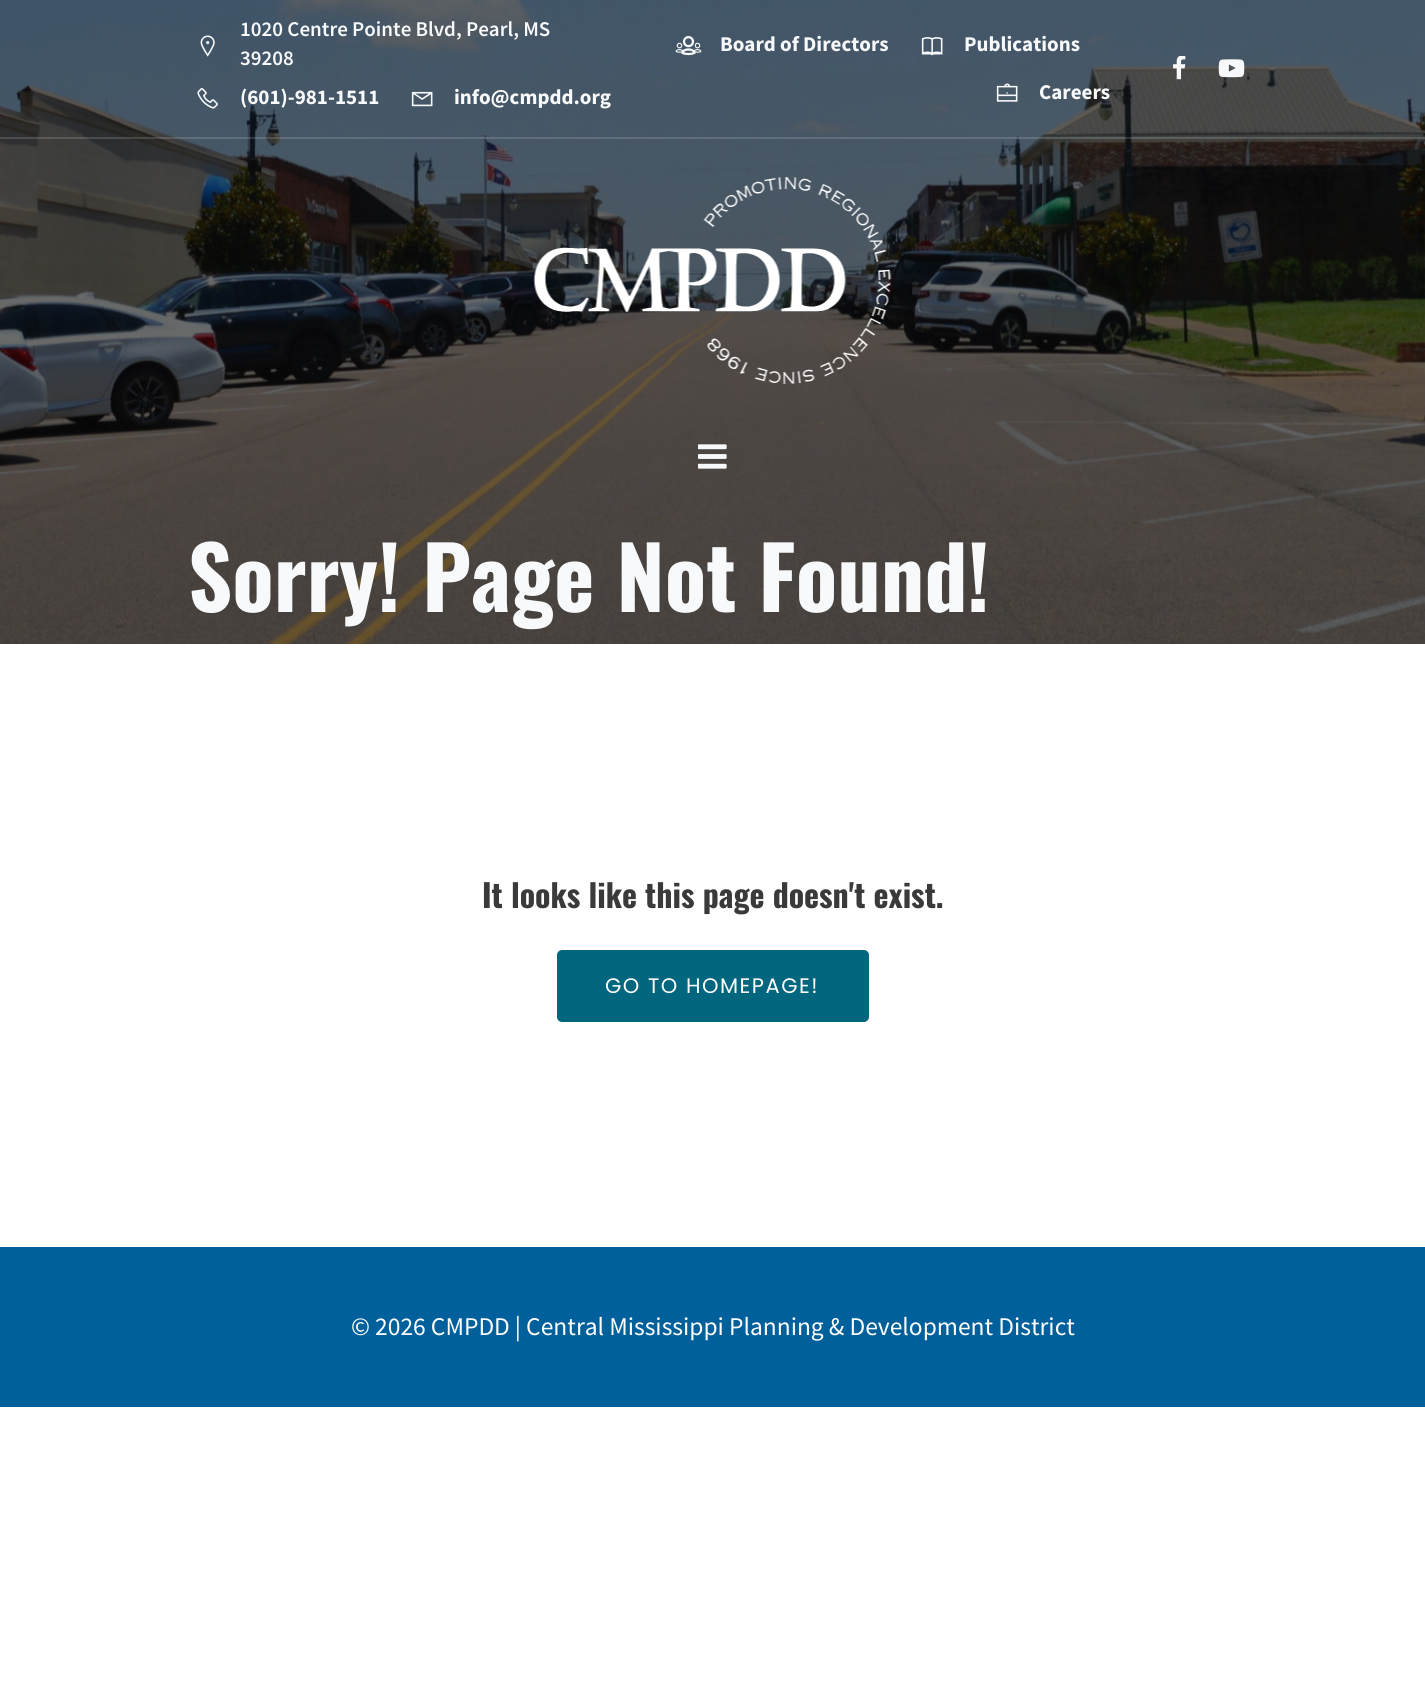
import math
import cairo


def write_spaced(ctx, x, y, s, letter, word):
	ctx.move_to(x, y)
	for ch in s:
		ctx.show_text(ch)
		ctx.rel_move_to(letter + word * (ch == ' '), 0)

def round_path(ctx, x, y, w, h, r):
	ctx.new_sub_path()
	for i, (u, v) in enumerate([(x + w - r, y + h - r), (x + r, y + h - r), (x + r, y + r), (x + w - r, y + r)]):
		ctx.arc(u, v, r, i * math.pi / 2, (i + 1) * math.pi / 2)
	ctx.close_path()

def paste(ctx, path, x, y, w, h):
	ctx.save()
	ctx.set_source_surface(cairo.ImageSurface.create_from_png(path), x, y)
	ctx.rectangle(x, y, w, h)
	ctx.fill()
	ctx.restore()

def draw(ctx):
	ctx.set_source_rgb(1, 1, 1)
	ctx.paint()
	paste(ctx, 'media/11.png', 1424, 0, 1, 644)
	paste(ctx, 'media/12.png', 0, 0, 1425, 644)
	ctx.set_source_rgba(0.965, 0.973, 0.98, 0.15)
	ctx.rectangle(0, 137, 1425, 2)
	ctx.fill()
	paste(ctx, 'media/1.png', 200, 35, 15, 22)
	ctx.select_font_face('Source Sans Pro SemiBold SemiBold')
	ctx.set_font_size(21)
	ctx.set_source_rgb(0.965, 0.973, 0.98)
	ctx.move_to(240, 36)
	ctx.show_text('1020 Centre Pointe Blvd, Pearl, MS')
	ctx.move_to(240, 65)
	ctx.show_text('39208')
	paste(ctx, 'media/2.png', 197, 88, 21, 21)
	ctx.select_font_face('Source Sans Pro', cairo.FONT_SLANT_NORMAL, cairo.FONT_WEIGHT_BOLD)
	ctx.move_to(240, 104)
	ctx.show_text('(601)-981-1511')
	paste(ctx, 'media/3.png', 411, 91, 22, 16)
	ctx.move_to(454, 104)
	ctx.show_text('info@cmpdd.org')
	paste(ctx, 'media/4.png', 675, 36, 27, 20)
	ctx.move_to(720, 51)
	ctx.show_text('Board of Directors')
	paste(ctx, 'media/5.png', 921, 37, 22, 19)
	ctx.move_to(964, 51)
	ctx.show_text('Publications')
	paste(ctx, 'media/6.png', 996, 83, 22, 19)
	ctx.move_to(1039, 99)
	ctx.show_text('Careers')
	paste(ctx, 'media/7.png', 1173, 56, 13, 24)
	paste(ctx, 'media/8.png', 1218, 59, 27, 19)
	paste(ctx, 'media/9.png', 533, 177, 358, 207)
	paste(ctx, 'media/10.png', 698, 444, 29, 25)
	ctx.select_font_face('Oswald', cairo.FONT_SLANT_NORMAL, cairo.FONT_WEIGHT_BOLD)
	ctx.set_font_size(86)
	ctx.move_to(188, 612)
	ctx.show_text('Sorry! Page Not Found!')
	ctx.set_font_size(31.9)
	ctx.set_source_rgb(0.227, 0.227, 0.227)
	ctx.move_to(482, 908)
	ctx.show_text('It looks like this page doesn\'t exist.')
	ctx.set_source_rgb(0.008, 0.4, 0.498)
	round_path(ctx, 558, 951, 310, 70, 4)
	ctx.fill_preserve()
	ctx.stroke()
	ctx.select_font_face('Poppins')
	ctx.set_font_size(21)
	ctx.set_source_rgb(1, 1, 1)
	write_spaced(ctx, 605, 993, 'GO TO HOMEPAGE!', 1.5, 0)
	ctx.set_source_rgb(0, 0.376, 0.612)
	ctx.rectangle(0, 1247, 1425, 160)
	ctx.fill()
	ctx.select_font_face('Source Sans Pro')
	ctx.set_font_size(25.5)
	ctx.set_source_rgb(1, 1, 1)
	ctx.move_to(351, 1335)
	ctx.show_text('© 2026 CMPDD | Central Mississippi Planning & Development District')


surface = cairo.ImageSurface(cairo.FORMAT_RGB24, 1425, 1689)
ctx = cairo.Context(surface)
options = cairo.FontOptions()
options.set_hint_metrics(cairo.HINT_METRICS_OFF)
options.set_hint_style(cairo.HINT_STYLE_NONE)
ctx.set_font_options(options)
ctx.set_miter_limit(4)
draw(ctx)
surface.write_to_png('image.png')
